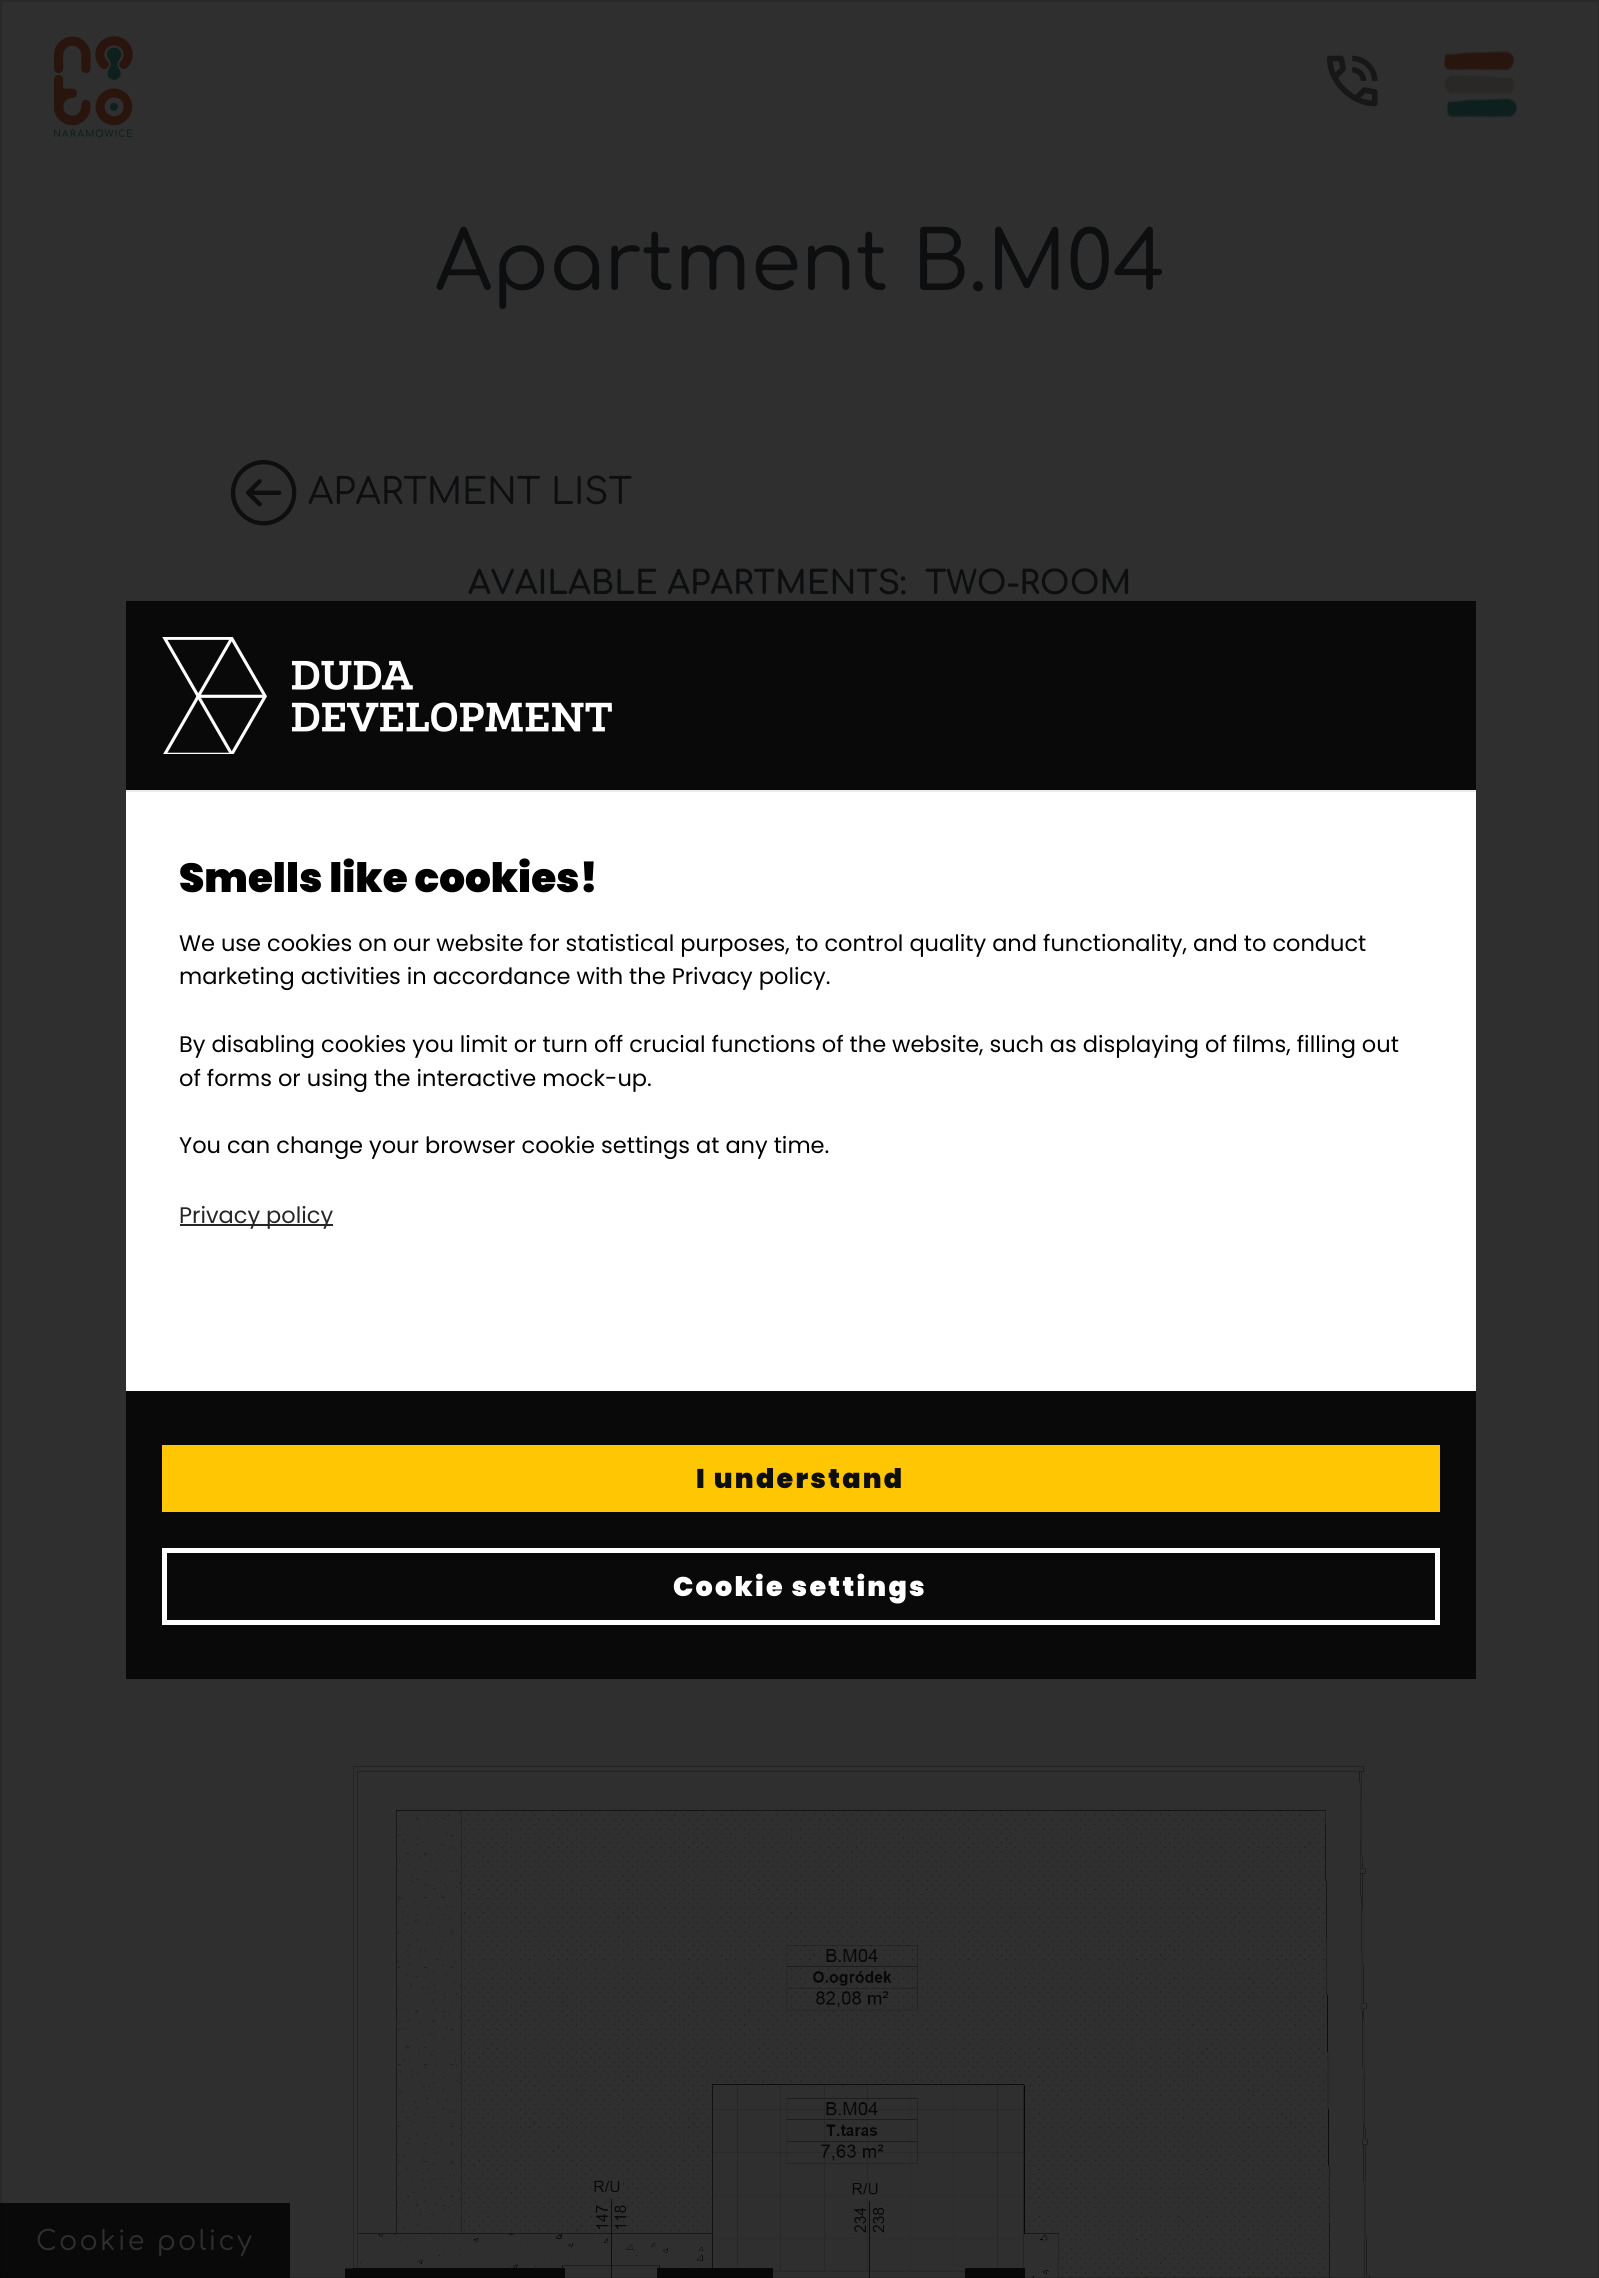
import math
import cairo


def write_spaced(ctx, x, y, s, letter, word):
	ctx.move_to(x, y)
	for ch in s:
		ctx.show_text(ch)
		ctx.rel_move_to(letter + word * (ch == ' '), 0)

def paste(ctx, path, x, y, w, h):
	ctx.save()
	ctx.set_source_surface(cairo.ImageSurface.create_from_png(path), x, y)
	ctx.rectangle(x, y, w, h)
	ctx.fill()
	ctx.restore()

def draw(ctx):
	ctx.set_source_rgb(0.184, 0.184, 0.184)
	ctx.paint()
	paste(ctx, 'media/1.png', 54, 36, 79, 101)
	paste(ctx, 'media/2.png', 1326, 55, 52, 52)
	paste(ctx, 'media/3.png', 1444, 51, 73, 67)
	ctx.select_font_face('Comfortaa Medium')
	ctx.set_font_size(81)
	ctx.set_source_rgb(0.051, 0.055, 0.059)
	ctx.move_to(435, 290)
	ctx.show_text('Apartment B.M04')
	paste(ctx, 'media/4.png', 230, 460, 67, 66)
	ctx.set_font_size(36)
	ctx.move_to(308, 504)
	ctx.show_text('APARTMENT LIST')
	ctx.select_font_face('Comfortaa', cairo.FONT_SLANT_NORMAL, cairo.FONT_WEIGHT_BOLD)
	ctx.set_font_size(32.4)
	ctx.move_to(468, 594)
	ctx.show_text('AVAILABLE APARTMENTS:')
	ctx.move_to(925, 594)
	ctx.show_text('TWO-ROOM')
	paste(ctx, 'media/5.png', 345, 1766, 1025, 512)
	ctx.set_source_rgb(0.039, 0.039, 0.039)
	ctx.rectangle(0, 2203, 290, 75)
	ctx.fill()
	ctx.rectangle(1, 1, 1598, 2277)
	ctx.set_source_rgba(0, 0, 0, 0.12)
	ctx.stroke()
	ctx.set_source_rgb(0.039, 0.039, 0.039)
	ctx.rectangle(126, 601, 1350, 1078)
	ctx.fill()
	ctx.set_source_rgb(0.914, 0.925, 0.937)
	ctx.rectangle(126, 790, 1350, 2)
	ctx.fill()
	paste(ctx, 'media/6.png', 162, 637, 450, 117)
	ctx.set_source_rgb(1, 1, 1)
	ctx.rectangle(126, 792, 1350, 599)
	ctx.fill()
	ctx.select_font_face('Poppins Black')
	ctx.set_font_size(40.5)
	ctx.set_source_rgb(0, 0, 0)
	ctx.move_to(179, 892)
	ctx.show_text('Smells like cookies!')
	ctx.select_font_face('Poppins')
	ctx.set_font_size(22.5)
	for x, y, s in [
		(179, 951, 'We use cookies on our website for statistical purposes, to control quality and functionality, and to conduct'),
		(179, 984, 'marketing activities in accordance with the Privacy policy.'),
		(179, 1052, 'By disabling cookies you limit or turn off crucial functions of the website, such as displaying of films, filling out'),
		(179, 1086, 'of forms or using the interactive mock-up.'),
		(179, 1153, 'You can change your browser cookie settings at any time.'),
	]:
		ctx.move_to(x, y)
		ctx.show_text(s)
	ctx.set_source_rgb(0.153, 0.145, 0.145)
	ctx.rectangle(180, 1224, 153, 2)
	ctx.fill()
	ctx.move_to(179, 1223)
	ctx.show_text('Privacy policy')
	ctx.set_source_rgb(1, 0.776, 0.012)
	ctx.rectangle(162, 1445, 1278, 67)
	ctx.fill()
	ctx.select_font_face('Poppins Black')
	ctx.set_font_size(27)
	ctx.set_source_rgb(0.051, 0.055, 0.059)
	write_spaced(ctx, 696, 1488, 'I understand', 2.25, 0)
	ctx.rectangle(164.5, 1550.5, 1273, 72)
	ctx.set_source_rgb(1, 1, 1)
	ctx.set_line_width(5)
	ctx.stroke()
	write_spaced(ctx, 673, 1596, 'Cookie settings', 2.25, 0)
	ctx.select_font_face('Comfortaa')
	ctx.set_source_rgb(0.184, 0.184, 0.184)
	write_spaced(ctx, 36, 2250, 'Cookie policy', 2.25, 0)


surface = cairo.ImageSurface(cairo.FORMAT_RGB24, 1599, 2278)
ctx = cairo.Context(surface)
options = cairo.FontOptions()
options.set_hint_metrics(cairo.HINT_METRICS_OFF)
options.set_hint_style(cairo.HINT_STYLE_NONE)
ctx.set_font_options(options)
ctx.set_miter_limit(4)
draw(ctx)
surface.write_to_png('image.png')
